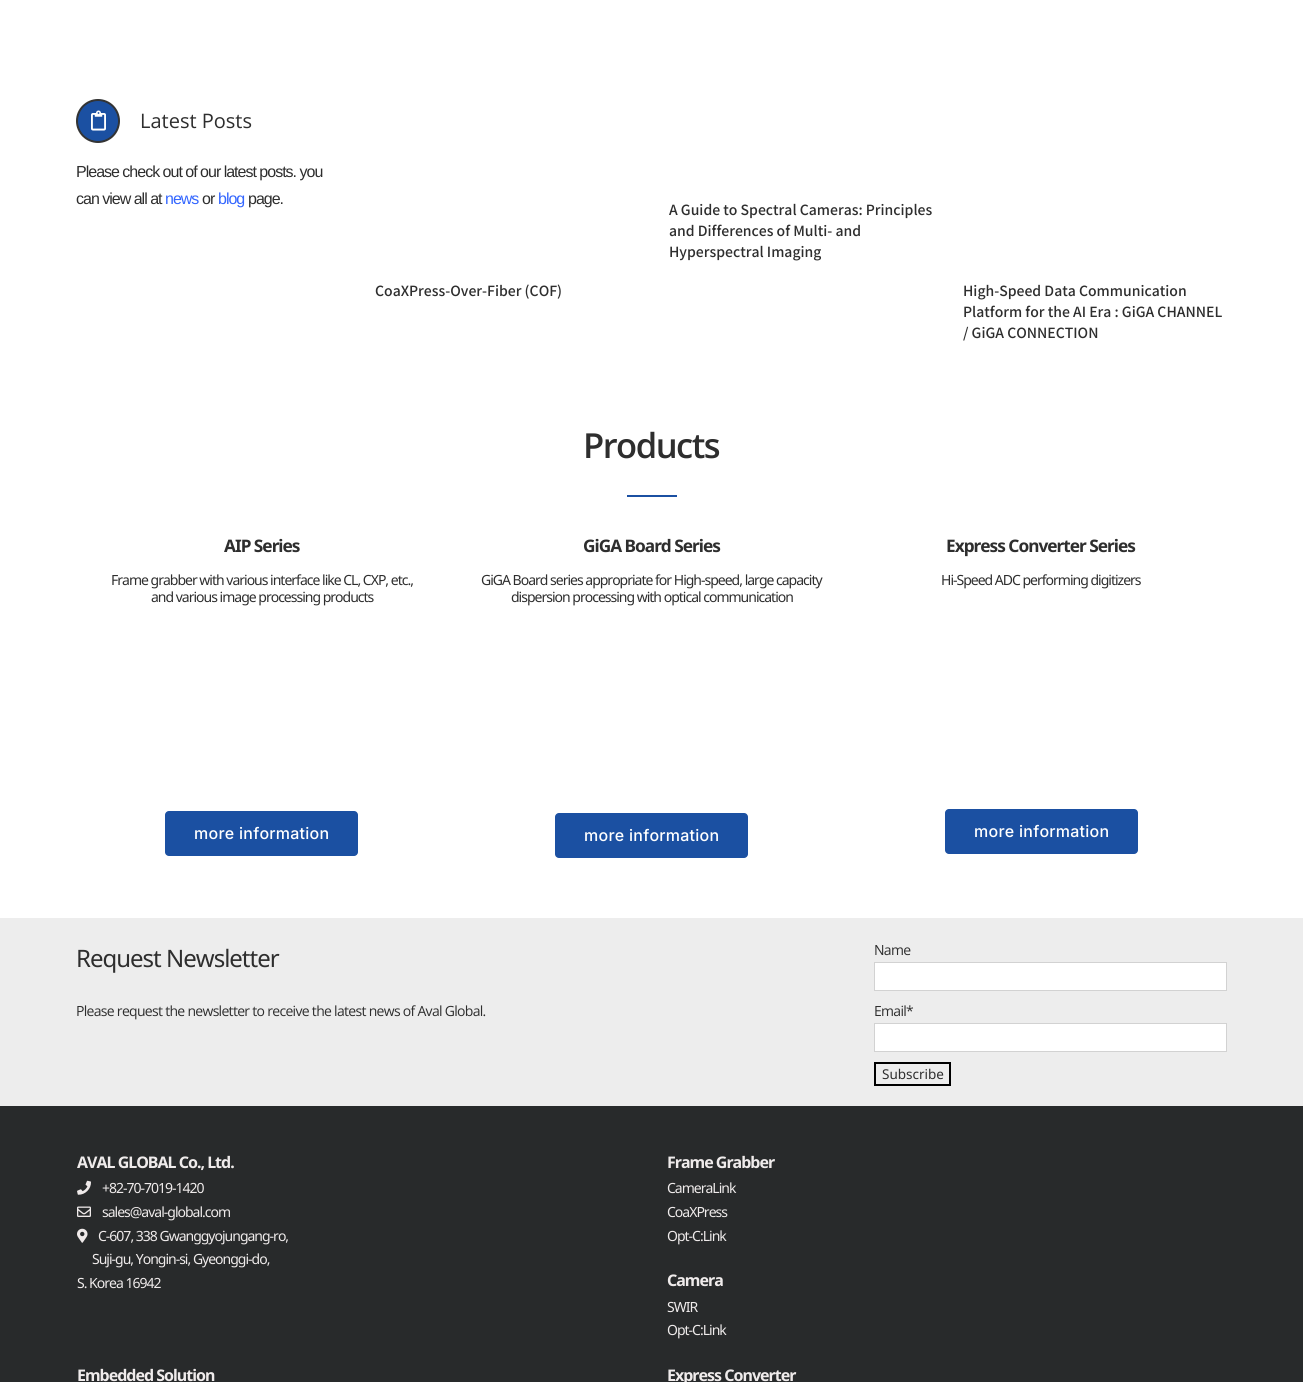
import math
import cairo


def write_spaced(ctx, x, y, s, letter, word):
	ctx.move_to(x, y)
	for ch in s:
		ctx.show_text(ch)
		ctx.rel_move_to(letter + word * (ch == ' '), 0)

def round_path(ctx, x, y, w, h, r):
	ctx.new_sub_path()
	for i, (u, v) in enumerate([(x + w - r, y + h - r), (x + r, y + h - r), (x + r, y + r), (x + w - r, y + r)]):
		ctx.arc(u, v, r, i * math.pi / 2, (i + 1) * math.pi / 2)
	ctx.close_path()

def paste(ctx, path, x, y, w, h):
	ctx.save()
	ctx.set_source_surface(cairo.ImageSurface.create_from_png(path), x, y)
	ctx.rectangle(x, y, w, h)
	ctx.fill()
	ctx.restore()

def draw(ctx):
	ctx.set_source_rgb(1, 1, 1)
	ctx.paint()
	ctx.set_source_rgb(0.2, 0.2, 0.2)
	ctx.arc(98, 121, 22, 0, 2 * math.pi)
	ctx.fill()
	ctx.set_source_rgb(0.106, 0.314, 0.635)
	ctx.arc(98, 121, 20.5, 0, 2 * math.pi)
	ctx.fill_preserve()
	ctx.set_source_rgb(0.2, 0.2, 0.2)
	ctx.set_line_width(1)
	ctx.stroke()
	paste(ctx, 'media/1.png', 91, 110, 15, 21)
	ctx.select_font_face('Open Sans')
	ctx.set_font_size(20)
	ctx.set_source_rgb(0.18, 0.18, 0.18)
	ctx.move_to(140, 128)
	ctx.show_text('Latest Posts')
	ctx.select_font_face('Liberation Sans')
	ctx.set_font_size(16)
	write_spaced(ctx, 76, 177, 'Please check out of our latest posts. you', -1, 0)
	write_spaced(ctx, 76, 204, 'can view all at', -1, 0)
	ctx.set_source_rgb(0.2, 0.4, 1)
	write_spaced(ctx, 165, 204, 'news', -1, 0)
	ctx.set_source_rgb(0.18, 0.18, 0.18)
	write_spaced(ctx, 202, 204, 'or', -1, 0)
	ctx.set_source_rgb(0.2, 0.4, 1)
	write_spaced(ctx, 218, 204, 'blog', -1, 0)
	ctx.set_source_rgb(0.18, 0.18, 0.18)
	write_spaced(ctx, 248, 204, 'page.', -1, 0)
	ctx.select_font_face('Noto Sans KR Thin')
	ctx.set_font_size(14)
	for x, y, s in [
		(669, 215, 'A Guide to Spectral Cameras: Principles'),
		(669, 236, 'and Differences of Multi- and'),
		(669, 257, 'Hyperspectral Imaging'),
		(375, 296, 'CoaXPress-Over-Fiber (COF)'),
		(963, 296, 'High-Speed Data Communication'),
		(963, 317, 'Platform for the AI Era : GiGA CHANNEL'),
		(963, 338, '/ GiGA CONNECTION'),
	]:
		ctx.move_to(x, y)
		ctx.show_text(s)
	ctx.select_font_face('Open Sans SemiBold')
	ctx.set_font_size(34.5)
	write_spaced(ctx, 583, 458, 'Products', -1.5, 0)
	ctx.set_source_rgb(0.106, 0.314, 0.635)
	ctx.rectangle(627, 495, 50, 2)
	ctx.fill()
	ctx.select_font_face('Noto Sans', cairo.FONT_SLANT_NORMAL, cairo.FONT_WEIGHT_BOLD)
	ctx.set_font_size(17.25)
	ctx.set_source_rgb(0.18, 0.18, 0.18)
	write_spaced(ctx, 224, 552, 'AIP Series', -1, 0)
	ctx.select_font_face('Noto Sans')
	ctx.set_font_size(14)
	write_spaced(ctx, 111, 585, 'Frame grabber with various interface like CL, CXP, etc.,', -1, 0)
	write_spaced(ctx, 151, 602, 'and various image processing products', -1, 0)
	ctx.set_source_rgb(0.106, 0.314, 0.635)
	round_path(ctx, 165, 811, 193, 45, 4)
	ctx.fill()
	ctx.select_font_face('Inter Medium')
	ctx.set_font_size(16)
	ctx.set_source_rgb(1, 1, 1)
	write_spaced(ctx, 194, 839, 'more information', 0.25, 0)
	ctx.select_font_face('Noto Sans', cairo.FONT_SLANT_NORMAL, cairo.FONT_WEIGHT_BOLD)
	ctx.set_font_size(17.25)
	ctx.set_source_rgb(0.18, 0.18, 0.18)
	write_spaced(ctx, 583, 552, 'GiGA Board Series', -1, 0)
	ctx.select_font_face('Noto Sans')
	ctx.set_font_size(14)
	write_spaced(ctx, 481, 585, 'GiGA Board series appropriate for High-speed, large capacity', -1, 0)
	write_spaced(ctx, 511, 602, 'dispersion processing with optical communication', -1, 0)
	ctx.set_source_rgb(0.106, 0.314, 0.635)
	round_path(ctx, 555, 813, 193, 45, 4)
	ctx.fill()
	ctx.select_font_face('Inter Medium')
	ctx.set_font_size(16)
	ctx.set_source_rgb(1, 1, 1)
	write_spaced(ctx, 584, 841, 'more information', 0.25, 0)
	ctx.select_font_face('Noto Sans', cairo.FONT_SLANT_NORMAL, cairo.FONT_WEIGHT_BOLD)
	ctx.set_font_size(17.25)
	ctx.set_source_rgb(0.18, 0.18, 0.18)
	write_spaced(ctx, 946, 552, 'Express Converter Series', -1, 0)
	ctx.select_font_face('Noto Sans')
	ctx.set_font_size(14)
	write_spaced(ctx, 941, 585, 'Hi-Speed ADC performing digitizers', -1, 0)
	ctx.set_source_rgb(0.106, 0.314, 0.635)
	round_path(ctx, 945, 809, 193, 45, 4)
	ctx.fill()
	ctx.select_font_face('Inter Medium')
	ctx.set_font_size(16)
	ctx.set_source_rgb(1, 1, 1)
	write_spaced(ctx, 974, 837, 'more information', 0.25, 0)
	ctx.set_source_rgb(0.929, 0.929, 0.929)
	ctx.rectangle(0, 918, 1303, 188)
	ctx.fill()
	ctx.select_font_face('Noto Sans')
	ctx.set_font_size(24)
	ctx.set_source_rgb(0.18, 0.18, 0.18)
	write_spaced(ctx, 76, 967, 'Request Newsletter', -1, 0)
	ctx.select_font_face('Open Sans')
	ctx.set_font_size(14)
	write_spaced(ctx, 76, 1016, 'Please request the newsletter to receive the latest news of Aval Global.', -0.7, 0)
	write_spaced(ctx, 874, 955, 'Name', -0.7, 0)
	ctx.set_source_rgb(1, 1, 1)
	ctx.rectangle(874.5, 962.5, 352, 28)
	ctx.fill_preserve()
	ctx.set_source_rgb(0.824, 0.824, 0.824)
	ctx.stroke()
	ctx.set_source_rgb(0.18, 0.18, 0.18)
	write_spaced(ctx, 874, 1016, 'Email*', -0.7, 0)
	ctx.set_source_rgb(1, 1, 1)
	ctx.rectangle(874.5, 1023.5, 352, 28)
	ctx.fill_preserve()
	ctx.set_source_rgb(0.824, 0.824, 0.824)
	ctx.stroke()
	ctx.rectangle(875, 1063, 75, 22)
	ctx.set_source_rgb(0, 0, 0)
	ctx.set_line_width(2)
	ctx.stroke()
	ctx.select_font_face('Noto Sans')
	ctx.set_font_size(13.5)
	ctx.set_source_rgb(0.18, 0.18, 0.18)
	ctx.move_to(882, 1079)
	ctx.show_text('Subscribe')
	ctx.set_source_rgb(0.157, 0.165, 0.169)
	ctx.rectangle(0, 1106, 1303, 276)
	ctx.fill()
	ctx.select_font_face('Noto Sans', cairo.FONT_SLANT_NORMAL, cairo.FONT_WEIGHT_BOLD)
	ctx.set_font_size(16)
	ctx.set_source_rgb(0.937, 0.918, 0.918)
	write_spaced(ctx, 77, 1168, 'AVAL GLOBAL Co., Ltd.', -1, 0)
	paste(ctx, 'media/2.png', 77, 1180, 14, 15)
	ctx.select_font_face('Noto Sans')
	ctx.set_font_size(14)
	write_spaced(ctx, 102, 1193, '+82-70-7019-1420', -1, 0)
	paste(ctx, 'media/3.png', 77, 1206, 14, 11)
	write_spaced(ctx, 102, 1217, 'sales@aval-global.com', -1, 0)
	paste(ctx, 'media/4.png', 77, 1228, 11, 15)
	for x, y, s in [
		(98, 1241, 'C-607, 338 Gwanggyojungang-ro,'),
		(92, 1264, 'Suji-gu, Yongin-si, Gyeonggi-do,'),
		(77, 1288, 'S. Korea 16942'),
	]:
		write_spaced(ctx, x, y, s, -1, 0)
	ctx.select_font_face('Noto Sans', cairo.FONT_SLANT_NORMAL, cairo.FONT_WEIGHT_BOLD)
	ctx.set_font_size(16)
	write_spaced(ctx, 667, 1168, 'Frame Grabber', -1, 0)
	ctx.select_font_face('Noto Sans')
	ctx.set_font_size(14)
	for x, y, s in [
		(667, 1193, 'CameraLink'),
		(667, 1217, 'CoaXPress'),
		(667, 1241, 'Opt-C:Link'),
	]:
		write_spaced(ctx, x, y, s, -1, 0)
	ctx.select_font_face('Noto Sans', cairo.FONT_SLANT_NORMAL, cairo.FONT_WEIGHT_BOLD)
	ctx.set_font_size(16)
	write_spaced(ctx, 667, 1286, 'Camera', -1, 0)
	ctx.select_font_face('Noto Sans')
	ctx.set_font_size(14)
	write_spaced(ctx, 667, 1312, 'SWIR', -1, 0)
	write_spaced(ctx, 667, 1335, 'Opt-C:Link', -1, 0)
	ctx.select_font_face('Noto Sans', cairo.FONT_SLANT_NORMAL, cairo.FONT_WEIGHT_BOLD)
	ctx.set_font_size(16)
	write_spaced(ctx, 77, 1381, 'Embedded Solution', -1, 0)
	write_spaced(ctx, 667, 1381, 'Express Converter', -1, 0)


surface = cairo.ImageSurface(cairo.FORMAT_RGB24, 1303, 1382)
ctx = cairo.Context(surface)
options = cairo.FontOptions()
options.set_hint_metrics(cairo.HINT_METRICS_OFF)
options.set_hint_style(cairo.HINT_STYLE_NONE)
ctx.set_font_options(options)
ctx.set_miter_limit(4)
draw(ctx)
surface.write_to_png('image.png')
